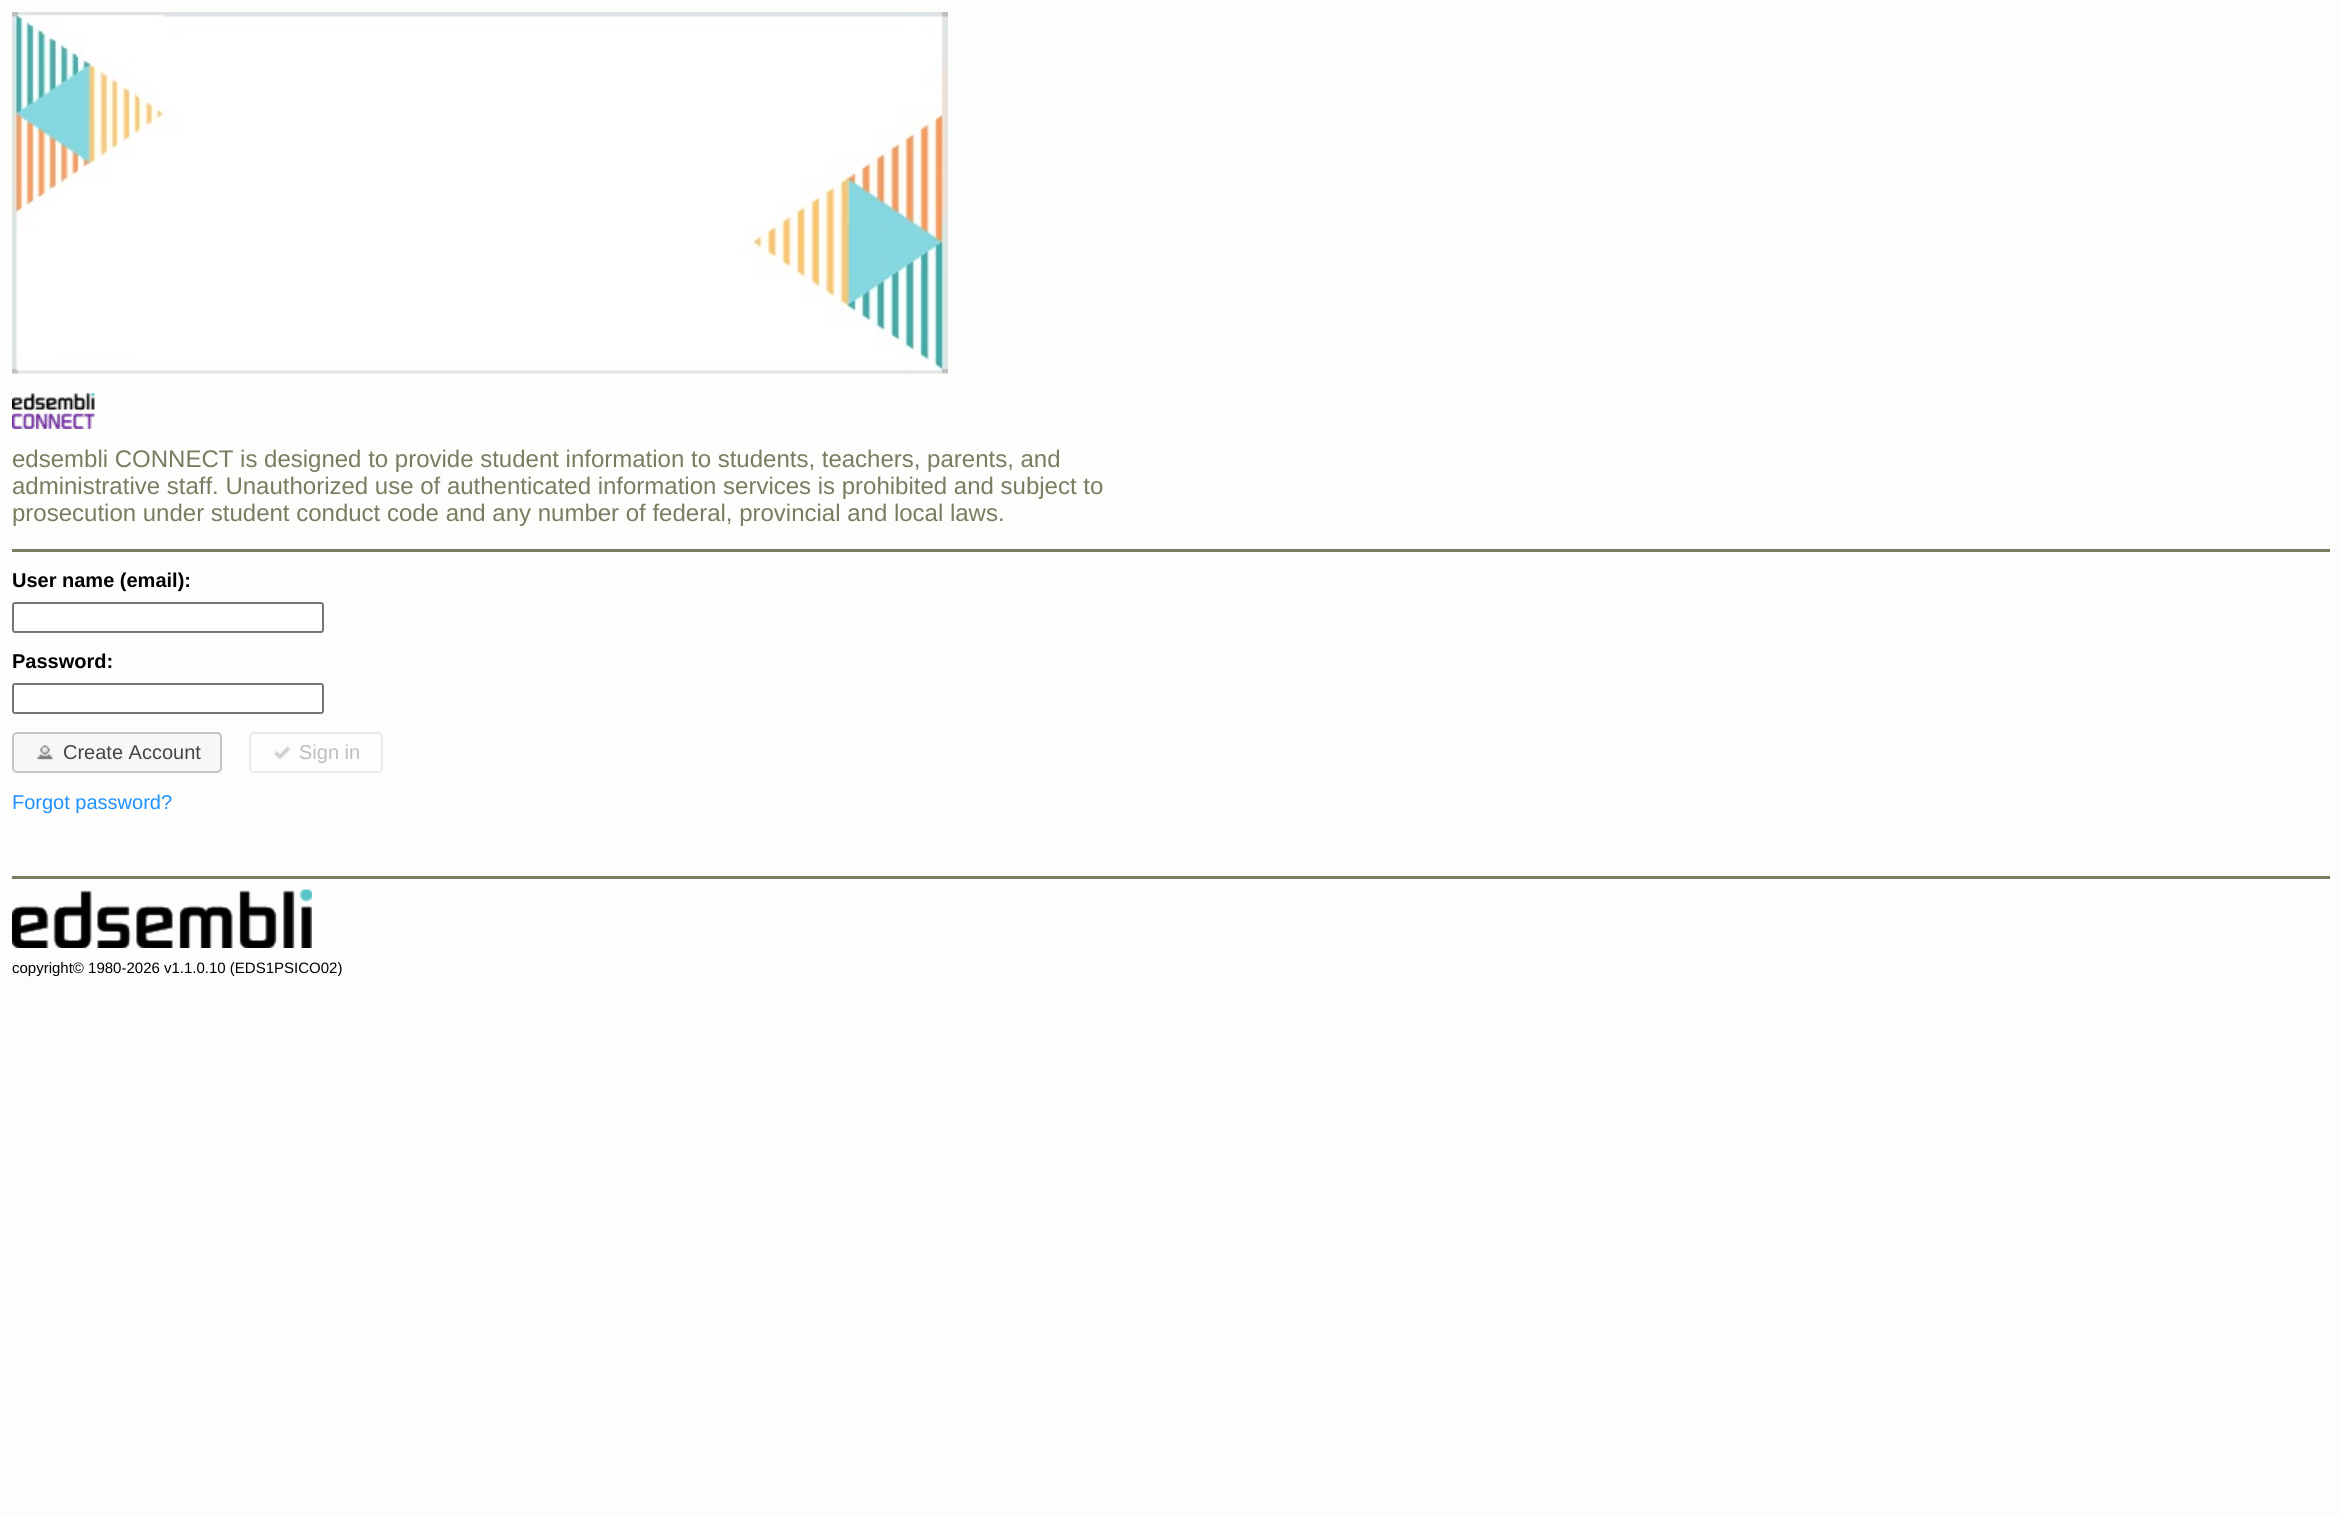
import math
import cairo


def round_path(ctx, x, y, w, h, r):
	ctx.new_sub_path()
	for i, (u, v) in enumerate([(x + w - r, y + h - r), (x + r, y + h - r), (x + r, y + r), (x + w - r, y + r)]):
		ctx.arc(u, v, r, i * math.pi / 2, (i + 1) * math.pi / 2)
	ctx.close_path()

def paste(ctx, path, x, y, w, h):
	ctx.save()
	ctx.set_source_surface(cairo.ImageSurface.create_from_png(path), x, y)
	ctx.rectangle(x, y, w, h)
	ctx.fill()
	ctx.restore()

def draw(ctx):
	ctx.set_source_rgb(0.992, 0.992, 0.984)
	ctx.paint()
	paste(ctx, 'media/1.png', 12, 12, 936, 362)
	paste(ctx, 'media/2.png', 12, 393, 83, 36)
	ctx.select_font_face('Liberation Sans')
	ctx.set_font_size(24)
	ctx.set_source_rgb(0.482, 0.482, 0.38)
	for x, y, s in [
		(12, 467, 'edsembli CONNECT is designed to provide student information to students, teachers, parents, and'),
		(12, 494, 'administrative staff. Unauthorized use of authenticated information services is prohibited and subject to'),
		(12, 521, 'prosecution under student conduct code and any number of federal, provincial and local laws.'),
	]:
		ctx.move_to(x, y)
		ctx.show_text(s)
	ctx.rectangle(12, 549, 2318, 3)
	ctx.fill()
	ctx.select_font_face('Liberation Sans', cairo.FONT_SLANT_NORMAL, cairo.FONT_WEIGHT_BOLD)
	ctx.set_font_size(20)
	ctx.set_source_rgb(0, 0, 0)
	ctx.move_to(12, 587)
	ctx.show_text('User name (email):')
	ctx.set_source_rgb(1, 1, 1)
	round_path(ctx, 13, 603, 310, 29, 2)
	ctx.fill_preserve()
	ctx.set_source_rgb(0.463, 0.463, 0.463)
	ctx.stroke()
	ctx.set_source_rgb(0, 0, 0)
	ctx.move_to(12, 668)
	ctx.show_text('Password:')
	ctx.set_source_rgb(1, 1, 1)
	round_path(ctx, 13, 684, 310, 29, 2)
	ctx.fill_preserve()
	ctx.set_source_rgb(0.463, 0.463, 0.463)
	ctx.stroke()
	ctx.set_source_rgb(0.965, 0.965, 0.965)
	round_path(ctx, 13, 733, 208, 39, 4)
	ctx.fill_preserve()
	ctx.set_source_rgb(0.773, 0.773, 0.773)
	ctx.stroke()
	paste(ctx, 'media/3.png', 37, 745, 16, 15)
	ctx.select_font_face('Liberation Sans')
	ctx.set_source_rgb(0.271, 0.271, 0.271)
	ctx.move_to(63, 759)
	ctx.show_text('Create Account')
	round_path(ctx, 250, 733, 132, 39, 4)
	ctx.set_source_rgb(0.914, 0.914, 0.91)
	ctx.stroke()
	paste(ctx, 'media/4.png', 273, 745, 18, 15)
	ctx.set_source_rgb(0.741, 0.741, 0.733)
	ctx.move_to(299, 759)
	ctx.show_text('Sign in')
	ctx.set_source_rgb(0.118, 0.565, 1)
	ctx.move_to(12, 809)
	ctx.show_text('Forgot password?')
	ctx.set_source_rgb(0.482, 0.482, 0.38)
	ctx.rectangle(12, 876, 2318, 3)
	ctx.fill()
	paste(ctx, 'media/5.png', 12, 889, 300, 59)
	ctx.set_font_size(15)
	ctx.set_source_rgb(0, 0, 0)
	ctx.move_to(12, 973)
	ctx.show_text('copyright© 1980-2026 v1.1.0.10 (EDS1PSICO02)')


surface = cairo.ImageSurface(cairo.FORMAT_RGB24, 2341, 1516)
ctx = cairo.Context(surface)
options = cairo.FontOptions()
options.set_hint_metrics(cairo.HINT_METRICS_OFF)
options.set_hint_style(cairo.HINT_STYLE_NONE)
ctx.set_font_options(options)
ctx.set_miter_limit(4)
draw(ctx)
surface.write_to_png('image.png')
